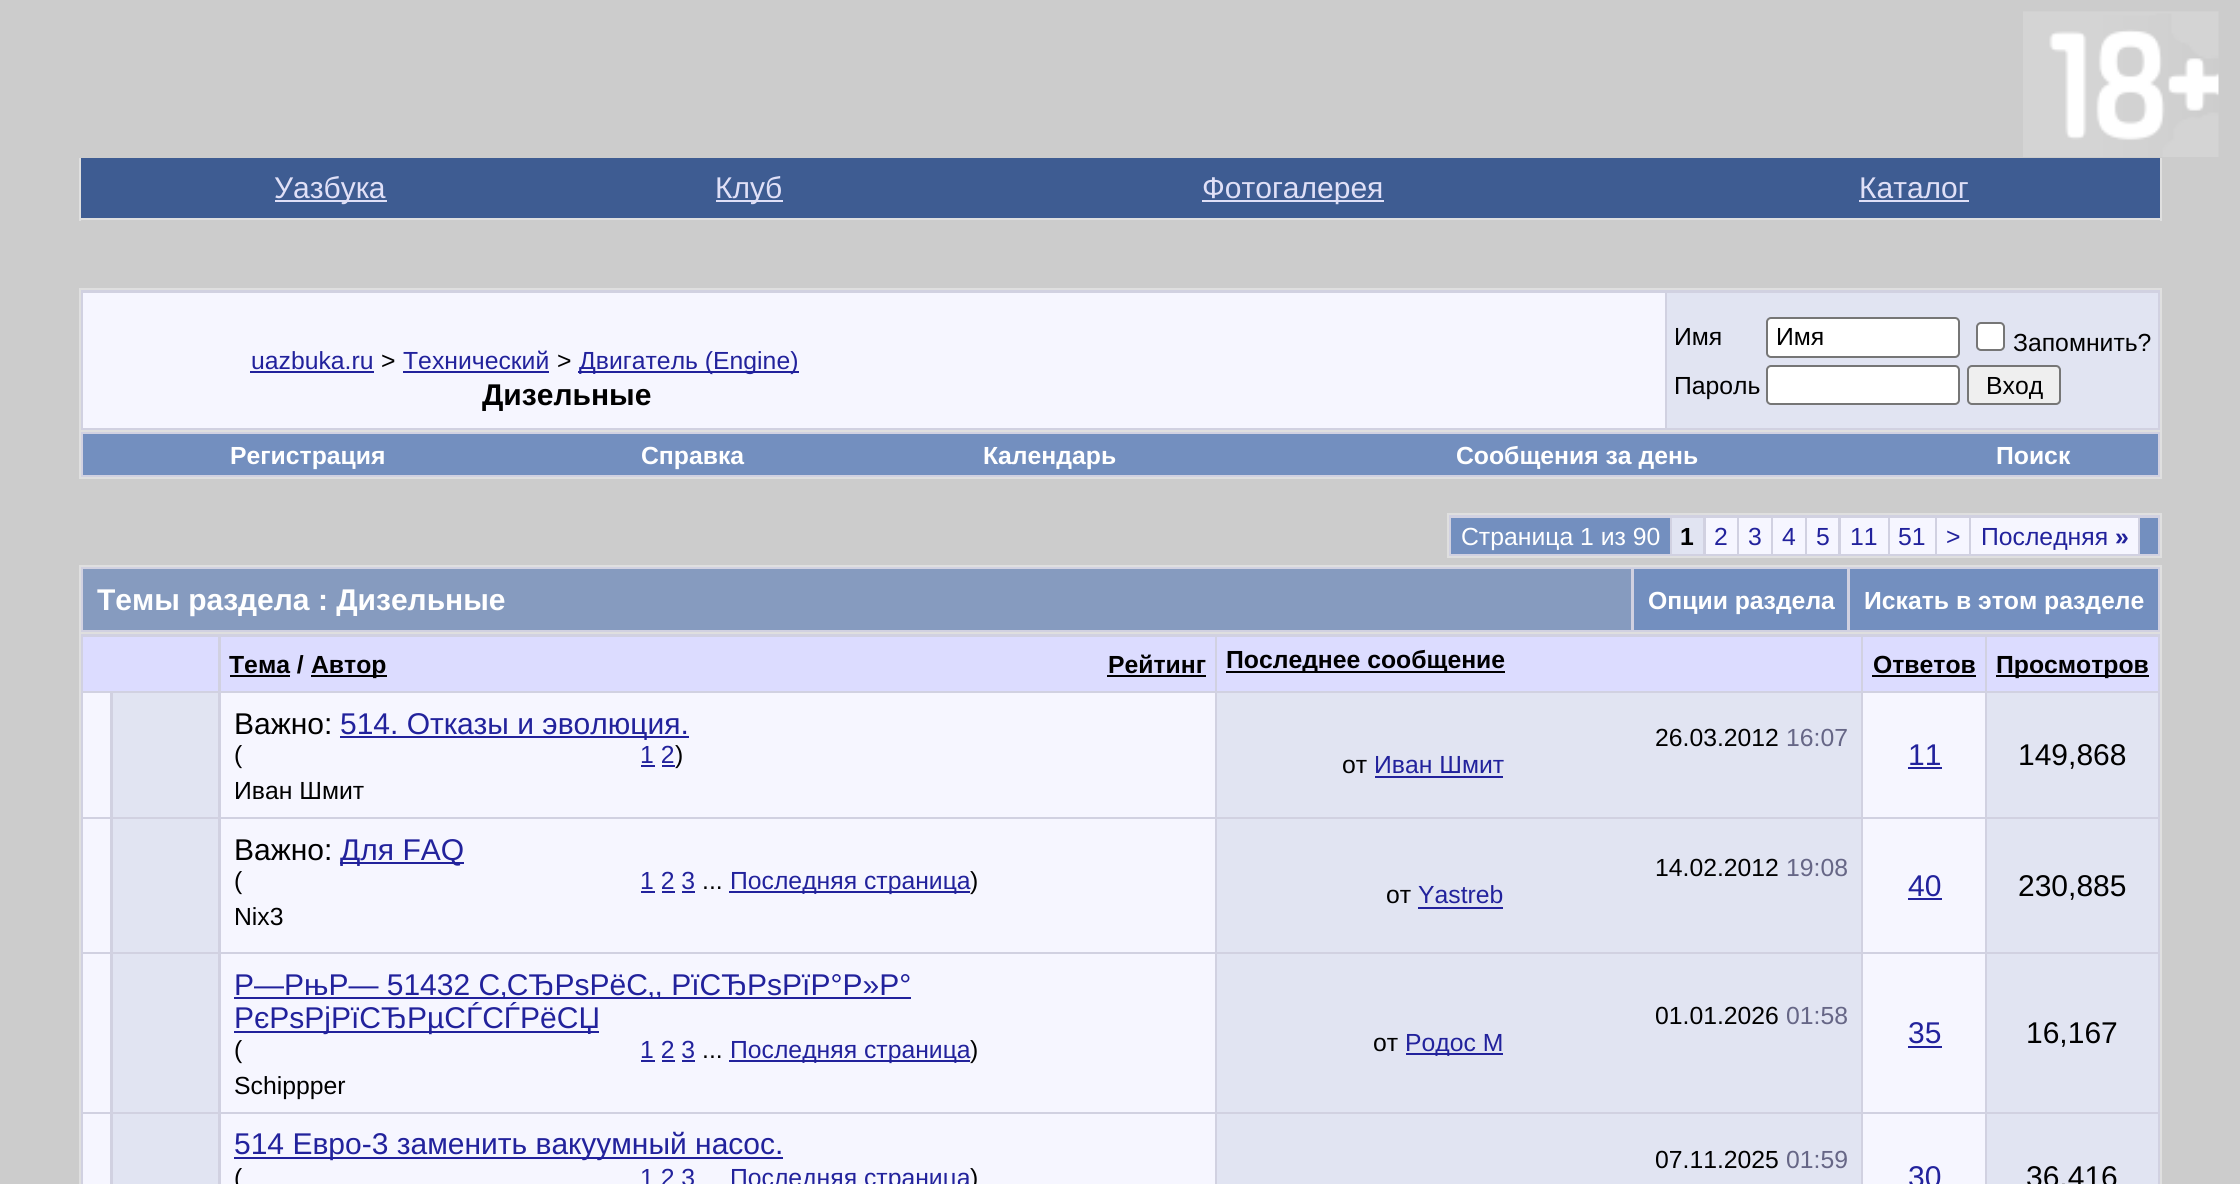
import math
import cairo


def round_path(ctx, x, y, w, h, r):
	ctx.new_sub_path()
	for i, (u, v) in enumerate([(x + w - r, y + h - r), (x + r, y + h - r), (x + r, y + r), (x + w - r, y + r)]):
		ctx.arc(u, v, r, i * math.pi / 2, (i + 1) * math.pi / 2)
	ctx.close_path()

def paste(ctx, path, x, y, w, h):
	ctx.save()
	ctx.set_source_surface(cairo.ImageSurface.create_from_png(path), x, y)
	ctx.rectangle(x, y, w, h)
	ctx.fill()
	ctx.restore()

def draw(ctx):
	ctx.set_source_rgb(0.8, 0.8, 0.8)
	ctx.paint()
	paste(ctx, 'media/1.png', 2023, 11, 196, 146)
	ctx.set_source_rgb(0.875, 0.875, 0.875)
	ctx.rectangle(2160, 158, 2, 63)
	ctx.rectangle(79, 218, 2083, 2)
	ctx.rectangle(79, 158, 2, 63)
	ctx.fill()
	ctx.set_source_rgb(0.243, 0.361, 0.573)
	ctx.rectangle(81, 158, 2079, 60)
	ctx.fill()
	ctx.set_source_rgb(0.878, 0.878, 0.965)
	ctx.rectangle(275, 200, 112, 2)
	ctx.fill()
	ctx.select_font_face('Liberation Sans')
	ctx.set_font_size(30)
	ctx.move_to(274, 198)
	ctx.show_text('Уазбука')
	ctx.rectangle(716, 200, 67, 2)
	ctx.fill()
	ctx.move_to(715, 198)
	ctx.show_text('Клуб')
	ctx.rectangle(1202, 200, 182, 2)
	ctx.fill()
	ctx.move_to(1202, 198)
	ctx.show_text('Фотогалерея')
	ctx.move_to(1859, 198)
	ctx.show_text('Каталог')
	ctx.rectangle(1859, 200, 110, 2)
	ctx.fill()
	ctx.set_source_rgb(0.82, 0.82, 0.882)
	ctx.rectangle(80, 289, 2081, 142)
	ctx.fill_preserve()
	ctx.set_source_rgb(0.875, 0.875, 0.875)
	ctx.stroke()
	ctx.set_source_rgb(0.961, 0.961, 1)
	ctx.rectangle(83, 293, 1582, 135)
	ctx.fill()
	ctx.set_font_size(24.75)
	ctx.set_source_rgb(0.133, 0.133, 0.612)
	ctx.move_to(251, 369)
	ctx.show_text('uazbuka.ru')
	ctx.rectangle(250, 371, 124, 2)
	ctx.fill()
	ctx.set_source_rgb(0, 0, 0)
	ctx.move_to(381, 369)
	ctx.show_text('>')
	ctx.set_source_rgb(0.133, 0.133, 0.612)
	ctx.move_to(403, 369)
	ctx.show_text('Технический')
	ctx.rectangle(403, 371, 146, 2)
	ctx.fill()
	ctx.set_source_rgb(0, 0, 0)
	ctx.move_to(557, 369)
	ctx.show_text('>')
	ctx.set_source_rgb(0.133, 0.133, 0.612)
	ctx.rectangle(578, 371, 221, 2)
	ctx.fill()
	ctx.move_to(579, 369)
	ctx.show_text('Двигатель (Engine)')
	ctx.select_font_face('Liberation Sans', cairo.FONT_SLANT_NORMAL, cairo.FONT_WEIGHT_BOLD)
	ctx.set_font_size(30)
	ctx.set_source_rgb(0, 0, 0)
	ctx.move_to(482, 405)
	ctx.show_text('Дизельные')
	ctx.set_source_rgb(0.882, 0.894, 0.949)
	ctx.rectangle(1667, 293, 491, 135)
	ctx.fill()
	ctx.select_font_face('Liberation Sans')
	ctx.set_font_size(24.75)
	ctx.set_source_rgb(0, 0, 0)
	ctx.move_to(1674, 345)
	ctx.show_text('Имя')
	ctx.set_source_rgb(1, 1, 1)
	round_path(ctx, 1767, 318, 192, 39, 4)
	ctx.fill_preserve()
	ctx.set_source_rgb(0.463, 0.463, 0.463)
	ctx.stroke()
	ctx.set_source_rgb(0, 0, 0)
	ctx.move_to(1776, 345)
	ctx.show_text('Имя')
	ctx.set_source_rgb(1, 1, 1)
	round_path(ctx, 1977, 323, 27, 27, 4)
	ctx.fill_preserve()
	ctx.set_source_rgb(0.463, 0.463, 0.463)
	ctx.stroke()
	ctx.set_source_rgb(0, 0, 0)
	ctx.move_to(2013, 351)
	ctx.show_text('Запомнить?')
	ctx.move_to(1674, 394)
	ctx.show_text('Пароль')
	ctx.set_source_rgb(1, 1, 1)
	round_path(ctx, 1767, 366, 192, 38, 4)
	ctx.fill_preserve()
	ctx.set_source_rgb(0.463, 0.463, 0.463)
	ctx.stroke()
	ctx.set_source_rgb(0.937, 0.937, 0.937)
	round_path(ctx, 1968, 366, 92, 38, 4)
	ctx.fill_preserve()
	ctx.set_source_rgb(0.463, 0.463, 0.463)
	ctx.stroke()
	ctx.set_source_rgb(0, 0, 0)
	ctx.move_to(1986, 394)
	ctx.show_text('Вход')
	ctx.set_source_rgb(0.82, 0.82, 0.882)
	ctx.rectangle(81, 432, 2079, 45)
	ctx.fill()
	ctx.set_source_rgb(0.875, 0.875, 0.875)
	ctx.rectangle(2160, 432, 2, 47)
	ctx.rectangle(79, 477, 2083, 2)
	ctx.rectangle(79, 432, 2, 47)
	ctx.fill()
	ctx.set_source_rgb(0.451, 0.561, 0.749)
	ctx.rectangle(83, 434, 2075, 41)
	ctx.fill()
	ctx.select_font_face('Liberation Sans', cairo.FONT_SLANT_NORMAL, cairo.FONT_WEIGHT_BOLD)
	ctx.set_source_rgb(1, 1, 1)
	for x, y, s in [
		(230, 464, 'Регистрация'),
		(641, 464, 'Справка'),
		(983, 464, 'Календарь'),
		(1456, 464, 'Сообщения за день'),
		(1996, 464, 'Поиск'),
	]:
		ctx.move_to(x, y)
		ctx.show_text(s)
	ctx.set_source_rgb(0.82, 0.82, 0.882)
	ctx.rectangle(1448, 514, 713, 43)
	ctx.fill_preserve()
	ctx.set_source_rgb(0.875, 0.875, 0.875)
	ctx.stroke()
	ctx.set_source_rgb(0.451, 0.561, 0.749)
	ctx.rectangle(1451, 518, 219, 36)
	ctx.fill()
	ctx.select_font_face('Liberation Sans')
	ctx.set_source_rgb(1, 1, 1)
	ctx.move_to(1461, 545)
	ctx.show_text('Страница 1 из 90')
	ctx.set_source_rgb(0.882, 0.894, 0.949)
	ctx.rectangle(1672, 518, 31, 36)
	ctx.fill()
	ctx.select_font_face('Liberation Sans', cairo.FONT_SLANT_NORMAL, cairo.FONT_WEIGHT_BOLD)
	ctx.set_source_rgb(0, 0, 0)
	ctx.move_to(1680, 545)
	ctx.show_text('1')
	ctx.set_source_rgb(0.961, 0.961, 1)
	ctx.rectangle(1706, 518, 31, 36)
	ctx.fill()
	ctx.select_font_face('Liberation Sans')
	ctx.set_source_rgb(0.133, 0.133, 0.612)
	ctx.move_to(1714, 545)
	ctx.show_text('2')
	ctx.set_source_rgb(0.961, 0.961, 1)
	ctx.rectangle(1739, 518, 32, 36)
	ctx.fill()
	ctx.set_source_rgb(0.133, 0.133, 0.612)
	ctx.move_to(1748, 545)
	ctx.show_text('3')
	ctx.set_source_rgb(0.961, 0.961, 1)
	ctx.rectangle(1773, 518, 32, 36)
	ctx.fill()
	ctx.set_source_rgb(0.133, 0.133, 0.612)
	ctx.move_to(1782, 545)
	ctx.show_text('4')
	ctx.set_source_rgb(0.961, 0.961, 1)
	ctx.rectangle(1807, 518, 31, 36)
	ctx.fill()
	ctx.set_source_rgb(0.133, 0.133, 0.612)
	ctx.move_to(1816, 545)
	ctx.show_text('5')
	ctx.set_source_rgb(0.961, 0.961, 1)
	ctx.rectangle(1841, 518, 47, 36)
	ctx.fill()
	ctx.set_source_rgb(0.133, 0.133, 0.612)
	ctx.move_to(1850, 545)
	ctx.show_text('11')
	ctx.set_source_rgb(0.961, 0.961, 1)
	ctx.rectangle(1890, 518, 45, 36)
	ctx.fill()
	ctx.set_source_rgb(0.133, 0.133, 0.612)
	ctx.move_to(1898, 545)
	ctx.show_text('51')
	ctx.set_source_rgb(0.961, 0.961, 1)
	ctx.rectangle(1937, 518, 32, 36)
	ctx.fill()
	ctx.set_source_rgb(0.133, 0.133, 0.612)
	ctx.move_to(1946, 545)
	ctx.show_text('>')
	ctx.set_source_rgb(0.961, 0.961, 1)
	ctx.rectangle(1971, 518, 167, 36)
	ctx.fill()
	ctx.set_source_rgb(0.133, 0.133, 0.612)
	ctx.move_to(1981, 545)
	ctx.show_text('Последняя')
	ctx.select_font_face('Liberation Sans', cairo.FONT_SLANT_NORMAL, cairo.FONT_WEIGHT_BOLD)
	ctx.move_to(2115, 545)
	ctx.show_text('»')
	ctx.set_source_rgb(0.451, 0.561, 0.749)
	ctx.rectangle(2140, 518, 18, 36)
	ctx.fill()
	ctx.set_source_rgb(0.82, 0.82, 0.882)
	ctx.rectangle(81, 567, 2079, 65)
	ctx.fill()
	ctx.set_source_rgb(0.875, 0.875, 0.875)
	ctx.rectangle(79, 565, 2083, 2)
	ctx.rectangle(2160, 565, 2, 67)
	ctx.rectangle(79, 565, 2, 67)
	ctx.fill()
	ctx.set_source_rgb(0.525, 0.608, 0.749)
	ctx.rectangle(83, 569, 1548, 61)
	ctx.fill()
	ctx.set_font_size(30)
	ctx.set_source_rgb(1, 1, 1)
	ctx.move_to(97, 610)
	ctx.show_text('Темы раздела : Дизельные')
	ctx.set_source_rgb(0.451, 0.561, 0.749)
	ctx.rectangle(1634, 569, 213, 61)
	ctx.fill()
	ctx.set_font_size(24.75)
	ctx.set_source_rgb(1, 1, 1)
	ctx.move_to(1648, 609)
	ctx.show_text('Опции раздела')
	ctx.set_source_rgb(0.451, 0.561, 0.749)
	ctx.rectangle(1850, 569, 308, 61)
	ctx.fill()
	ctx.set_source_rgb(1, 1, 1)
	ctx.move_to(1864, 609)
	ctx.show_text('Искать в этом разделе')
	ctx.set_source_rgb(0.82, 0.82, 0.882)
	ctx.rectangle(80, 633, 2081, 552)
	ctx.fill_preserve()
	ctx.set_source_rgb(0.875, 0.875, 0.875)
	ctx.stroke()
	ctx.set_source_rgb(0.863, 0.863, 1)
	ctx.rectangle(83, 637, 135, 54)
	ctx.fill()
	ctx.rectangle(221, 637, 994, 54)
	ctx.fill()
	ctx.set_source_rgb(0, 0, 0)
	ctx.move_to(229, 673)
	ctx.show_text('Тема /')
	ctx.rectangle(230, 675, 60, 2)
	ctx.fill()
	ctx.rectangle(311, 675, 76, 2)
	ctx.fill()
	ctx.move_to(311, 673)
	ctx.show_text('Автор')
	ctx.move_to(1108, 673)
	ctx.show_text('Рейтинг')
	ctx.rectangle(1107, 675, 99, 2)
	ctx.fill()
	ctx.set_source_rgb(0.863, 0.863, 1)
	ctx.rectangle(1217, 637, 644, 54)
	ctx.fill()
	ctx.set_source_rgb(0, 0, 0)
	ctx.rectangle(1226, 671, 279, 2)
	ctx.fill()
	ctx.move_to(1226, 668)
	ctx.show_text('Последнее сообщение')
	ctx.set_source_rgb(0.863, 0.863, 1)
	ctx.rectangle(1863, 637, 122, 54)
	ctx.fill()
	ctx.set_source_rgb(0, 0, 0)
	ctx.move_to(1873, 673)
	ctx.show_text('Ответов')
	ctx.rectangle(1872, 675, 104, 2)
	ctx.fill()
	ctx.set_source_rgb(0.863, 0.863, 1)
	ctx.rectangle(1987, 637, 171, 54)
	ctx.fill()
	ctx.set_source_rgb(0, 0, 0)
	ctx.rectangle(1996, 675, 153, 2)
	ctx.fill()
	ctx.move_to(1996, 673)
	ctx.show_text('Просмотров')
	ctx.set_source_rgb(0.961, 0.961, 1)
	ctx.rectangle(83, 693, 27, 124)
	ctx.fill()
	ctx.set_source_rgb(0.882, 0.894, 0.949)
	ctx.rectangle(113, 693, 105, 124)
	ctx.fill()
	ctx.set_source_rgb(0.961, 0.961, 1)
	ctx.rectangle(221, 693, 994, 124)
	ctx.fill()
	ctx.select_font_face('Liberation Sans')
	ctx.set_font_size(30)
	ctx.set_source_rgb(0, 0, 0)
	ctx.move_to(234, 734)
	ctx.show_text('Важно:')
	ctx.set_source_rgb(0.133, 0.133, 0.612)
	ctx.rectangle(340, 736, 349, 2)
	ctx.fill()
	ctx.move_to(340, 734)
	ctx.show_text('514. Отказы и эволюция.')
	ctx.set_font_size(24.75)
	ctx.set_source_rgb(0, 0, 0)
	ctx.move_to(234, 763)
	ctx.show_text('(')
	ctx.set_source_rgb(0.133, 0.133, 0.612)
	ctx.move_to(640, 763)
	ctx.show_text('1 2')
	ctx.rectangle(641, 765, 14, 2)
	ctx.fill()
	ctx.rectangle(662, 765, 13, 2)
	ctx.fill()
	ctx.set_source_rgb(0, 0, 0)
	ctx.move_to(675, 763)
	ctx.show_text(')')
	ctx.move_to(234, 799)
	ctx.show_text('Иван Шмит')
	ctx.set_source_rgb(0.882, 0.894, 0.949)
	ctx.rectangle(1217, 693, 644, 124)
	ctx.fill()
	ctx.set_source_rgb(0, 0, 0)
	ctx.move_to(1655, 746)
	ctx.show_text('26.03.2012')
	ctx.set_source_rgb(0.4, 0.4, 0.525)
	ctx.move_to(1786, 746)
	ctx.show_text('16:07')
	ctx.set_source_rgb(0, 0, 0)
	ctx.move_to(1342, 773)
	ctx.show_text('от')
	ctx.set_source_rgb(0.133, 0.133, 0.612)
	ctx.move_to(1374, 773)
	ctx.show_text('Иван Шмит')
	ctx.rectangle(1375, 776, 128, 2)
	ctx.fill()
	ctx.set_source_rgb(0.961, 0.961, 1)
	ctx.rectangle(1863, 693, 122, 124)
	ctx.fill()
	ctx.set_font_size(30)
	ctx.set_source_rgb(0.133, 0.133, 0.612)
	ctx.move_to(1908, 765)
	ctx.show_text('11')
	ctx.rectangle(1908, 767, 34, 2)
	ctx.fill()
	ctx.set_source_rgb(0.882, 0.894, 0.949)
	ctx.rectangle(1987, 693, 171, 124)
	ctx.fill()
	ctx.set_source_rgb(0, 0, 0)
	ctx.move_to(2018, 765)
	ctx.show_text('149,868')
	ctx.set_source_rgb(0.961, 0.961, 1)
	ctx.rectangle(83, 819, 27, 133)
	ctx.fill()
	ctx.set_source_rgb(0.882, 0.894, 0.949)
	ctx.rectangle(113, 819, 105, 133)
	ctx.fill()
	ctx.set_source_rgb(0.961, 0.961, 1)
	ctx.rectangle(221, 819, 994, 133)
	ctx.fill()
	ctx.set_source_rgb(0, 0, 0)
	ctx.move_to(234, 860)
	ctx.show_text('Важно:')
	ctx.set_source_rgb(0.133, 0.133, 0.612)
	ctx.rectangle(340, 862, 124, 2)
	ctx.fill()
	ctx.move_to(340, 860)
	ctx.show_text('Для FAQ')
	ctx.set_font_size(24.75)
	ctx.set_source_rgb(0, 0, 0)
	ctx.move_to(234, 889)
	ctx.show_text('(')
	ctx.set_source_rgb(0.133, 0.133, 0.612)
	ctx.move_to(640, 889)
	ctx.show_text('1 2 3')
	ctx.rectangle(641, 891, 14, 2)
	ctx.fill()
	ctx.rectangle(662, 891, 13, 2)
	ctx.fill()
	ctx.set_source_rgb(0, 0, 0)
	ctx.move_to(702, 889)
	ctx.show_text('...')
	ctx.set_source_rgb(0.133, 0.133, 0.612)
	ctx.rectangle(682, 891, 13, 2)
	ctx.fill()
	ctx.rectangle(729, 891, 241, 2)
	ctx.fill()
	ctx.move_to(730, 889)
	ctx.show_text('Последняя страница')
	ctx.set_source_rgb(0, 0, 0)
	ctx.move_to(970, 889)
	ctx.show_text(')')
	ctx.move_to(234, 925)
	ctx.show_text('Nix3')
	ctx.set_source_rgb(0.882, 0.894, 0.949)
	ctx.rectangle(1217, 819, 644, 133)
	ctx.fill()
	ctx.set_source_rgb(0, 0, 0)
	ctx.move_to(1655, 876)
	ctx.show_text('14.02.2012')
	ctx.set_source_rgb(0.4, 0.4, 0.525)
	ctx.move_to(1786, 876)
	ctx.show_text('19:08')
	ctx.set_source_rgb(0, 0, 0)
	ctx.move_to(1386, 903)
	ctx.show_text('от')
	ctx.set_source_rgb(0.133, 0.133, 0.612)
	ctx.move_to(1418, 903)
	ctx.show_text('Yastreb')
	ctx.rectangle(1418, 907, 85, 2)
	ctx.fill()
	ctx.set_source_rgb(0.961, 0.961, 1)
	ctx.rectangle(1863, 819, 122, 133)
	ctx.fill()
	ctx.set_font_size(30)
	ctx.set_source_rgb(0.133, 0.133, 0.612)
	ctx.move_to(1908, 896)
	ctx.show_text('40')
	ctx.rectangle(1908, 898, 34, 2)
	ctx.fill()
	ctx.set_source_rgb(0.882, 0.894, 0.949)
	ctx.rectangle(1987, 819, 171, 133)
	ctx.fill()
	ctx.set_source_rgb(0, 0, 0)
	ctx.move_to(2018, 896)
	ctx.show_text('230,885')
	ctx.set_source_rgb(0.961, 0.961, 1)
	ctx.rectangle(83, 954, 27, 158)
	ctx.fill()
	ctx.set_source_rgb(0.882, 0.894, 0.949)
	ctx.rectangle(113, 954, 105, 158)
	ctx.fill()
	ctx.set_source_rgb(0.961, 0.961, 1)
	ctx.rectangle(221, 954, 994, 158)
	ctx.fill()
	ctx.set_source_rgb(0.133, 0.133, 0.612)
	ctx.rectangle(234, 997, 677, 2)
	ctx.fill()
	ctx.move_to(234, 995)
	ctx.show_text('Р—РњР— 51432 С‚СЂРѕРёС‚, РїСЂРѕРїР°Р»Р°')
	ctx.rectangle(234, 1031, 365, 2)
	ctx.fill()
	ctx.move_to(234, 1028)
	ctx.show_text('РєРѕРјРїСЂРµСЃСЃРёСЏ')
	ctx.set_font_size(24.75)
	ctx.set_source_rgb(0, 0, 0)
	ctx.move_to(234, 1058)
	ctx.show_text('(')
	ctx.set_source_rgb(0.133, 0.133, 0.612)
	ctx.move_to(640, 1058)
	ctx.show_text('1 2 3')
	ctx.rectangle(641, 1060, 14, 2)
	ctx.fill()
	ctx.rectangle(662, 1060, 13, 2)
	ctx.fill()
	ctx.set_source_rgb(0, 0, 0)
	ctx.move_to(702, 1058)
	ctx.show_text('...')
	ctx.set_source_rgb(0.133, 0.133, 0.612)
	ctx.rectangle(682, 1060, 13, 2)
	ctx.fill()
	ctx.rectangle(729, 1060, 241, 2)
	ctx.fill()
	ctx.move_to(730, 1058)
	ctx.show_text('Последняя страница')
	ctx.set_source_rgb(0, 0, 0)
	ctx.move_to(970, 1058)
	ctx.show_text(')')
	ctx.move_to(234, 1094)
	ctx.show_text('Schippper')
	ctx.set_source_rgb(0.882, 0.894, 0.949)
	ctx.rectangle(1217, 954, 644, 158)
	ctx.fill()
	ctx.set_source_rgb(0, 0, 0)
	ctx.move_to(1655, 1024)
	ctx.show_text('01.01.2026')
	ctx.set_source_rgb(0.4, 0.4, 0.525)
	ctx.move_to(1786, 1024)
	ctx.show_text('01:58')
	ctx.set_source_rgb(0, 0, 0)
	ctx.move_to(1373, 1051)
	ctx.show_text('от')
	ctx.set_source_rgb(0.133, 0.133, 0.612)
	ctx.rectangle(1406, 1053, 97, 2)
	ctx.fill()
	ctx.move_to(1405, 1051)
	ctx.show_text('Родос М')
	ctx.set_source_rgb(0.961, 0.961, 1)
	ctx.rectangle(1863, 954, 122, 158)
	ctx.fill()
	ctx.set_font_size(30)
	ctx.set_source_rgb(0.133, 0.133, 0.612)
	ctx.move_to(1908, 1043)
	ctx.show_text('35')
	ctx.rectangle(1908, 1046, 34, 2)
	ctx.fill()
	ctx.set_source_rgb(0.882, 0.894, 0.949)
	ctx.rectangle(1987, 954, 171, 158)
	ctx.fill()
	ctx.set_source_rgb(0, 0, 0)
	ctx.move_to(2026, 1043)
	ctx.show_text('16,167')
	ctx.set_source_rgb(0.961, 0.961, 1)
	ctx.rectangle(83, 1114, 27, 70)
	ctx.fill()
	ctx.set_source_rgb(0.882, 0.894, 0.949)
	ctx.rectangle(113, 1114, 105, 70)
	ctx.fill()
	ctx.set_source_rgb(0.961, 0.961, 1)
	ctx.rectangle(221, 1114, 994, 70)
	ctx.fill()
	ctx.set_source_rgb(0.133, 0.133, 0.612)
	ctx.rectangle(234, 1157, 549, 2)
	ctx.fill()
	ctx.move_to(234, 1154)
	ctx.show_text('514 Евро-3 заменить вакуумный насос.')
	ctx.set_font_size(24.75)
	ctx.set_source_rgb(0, 0, 0)
	ctx.move_to(234, 1186)
	ctx.show_text('(')
	ctx.set_source_rgb(0.133, 0.133, 0.612)
	ctx.move_to(640, 1186)
	ctx.show_text('1 2 3')
	ctx.move_to(730, 1186)
	ctx.show_text('Последняя страница')
	ctx.set_source_rgb(0, 0, 0)
	ctx.move_to(970, 1186)
	ctx.show_text(')')
	ctx.set_source_rgb(0.882, 0.894, 0.949)
	ctx.rectangle(1217, 1114, 644, 70)
	ctx.fill()
	ctx.set_source_rgb(0, 0, 0)
	ctx.move_to(1655, 1168)
	ctx.show_text('07.11.2025')
	ctx.set_source_rgb(0.4, 0.4, 0.525)
	ctx.move_to(1786, 1168)
	ctx.show_text('01:59')
	ctx.set_source_rgb(0.961, 0.961, 1)
	ctx.rectangle(1863, 1114, 122, 70)
	ctx.fill()
	ctx.set_font_size(30)
	ctx.set_source_rgb(0.133, 0.133, 0.612)
	ctx.move_to(1908, 1187)
	ctx.show_text('30')
	ctx.set_source_rgb(0.882, 0.894, 0.949)
	ctx.rectangle(1987, 1114, 171, 70)
	ctx.fill()
	ctx.set_source_rgb(0, 0, 0)
	ctx.move_to(2026, 1187)
	ctx.show_text('36,416')


surface = cairo.ImageSurface(cairo.FORMAT_RGB24, 2240, 1184)
ctx = cairo.Context(surface)
options = cairo.FontOptions()
options.set_hint_metrics(cairo.HINT_METRICS_OFF)
options.set_hint_style(cairo.HINT_STYLE_NONE)
ctx.set_font_options(options)
ctx.set_miter_limit(4)
draw(ctx)
surface.write_to_png('image.png')
